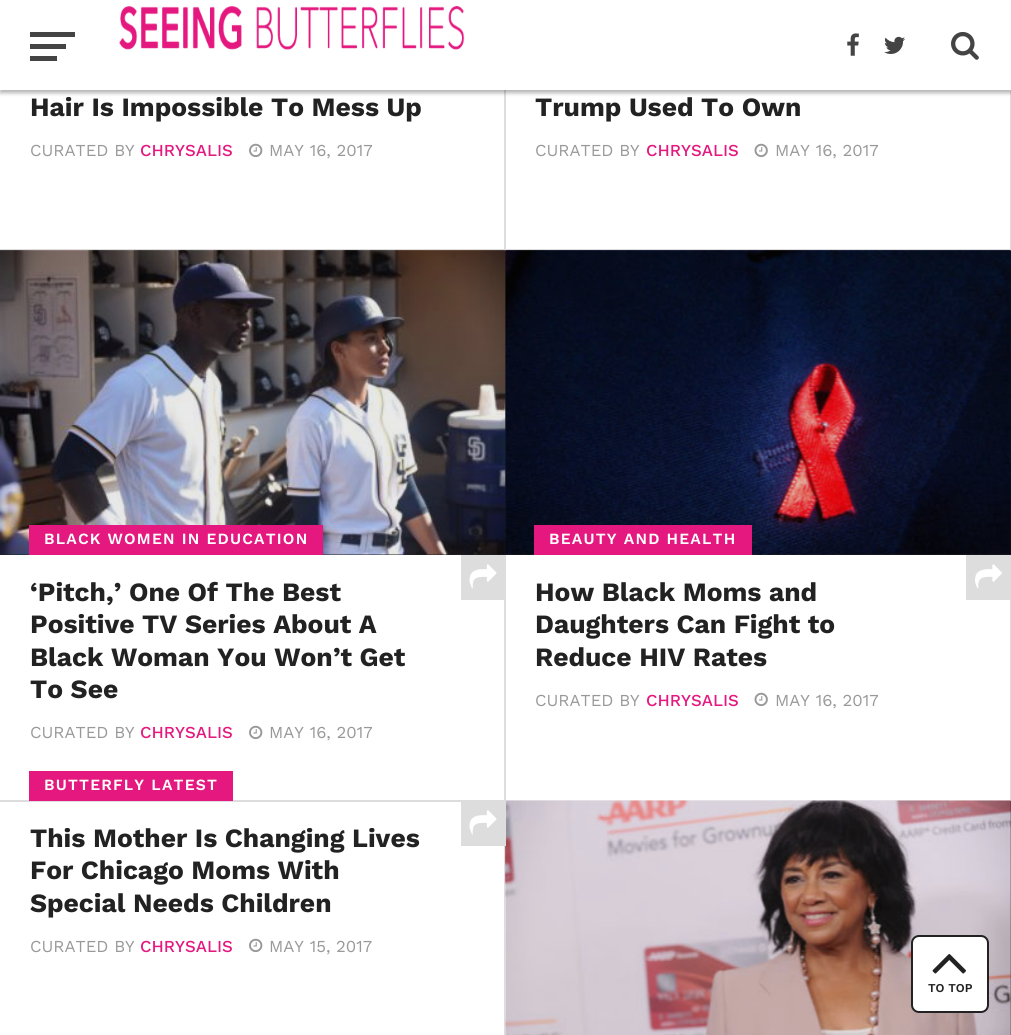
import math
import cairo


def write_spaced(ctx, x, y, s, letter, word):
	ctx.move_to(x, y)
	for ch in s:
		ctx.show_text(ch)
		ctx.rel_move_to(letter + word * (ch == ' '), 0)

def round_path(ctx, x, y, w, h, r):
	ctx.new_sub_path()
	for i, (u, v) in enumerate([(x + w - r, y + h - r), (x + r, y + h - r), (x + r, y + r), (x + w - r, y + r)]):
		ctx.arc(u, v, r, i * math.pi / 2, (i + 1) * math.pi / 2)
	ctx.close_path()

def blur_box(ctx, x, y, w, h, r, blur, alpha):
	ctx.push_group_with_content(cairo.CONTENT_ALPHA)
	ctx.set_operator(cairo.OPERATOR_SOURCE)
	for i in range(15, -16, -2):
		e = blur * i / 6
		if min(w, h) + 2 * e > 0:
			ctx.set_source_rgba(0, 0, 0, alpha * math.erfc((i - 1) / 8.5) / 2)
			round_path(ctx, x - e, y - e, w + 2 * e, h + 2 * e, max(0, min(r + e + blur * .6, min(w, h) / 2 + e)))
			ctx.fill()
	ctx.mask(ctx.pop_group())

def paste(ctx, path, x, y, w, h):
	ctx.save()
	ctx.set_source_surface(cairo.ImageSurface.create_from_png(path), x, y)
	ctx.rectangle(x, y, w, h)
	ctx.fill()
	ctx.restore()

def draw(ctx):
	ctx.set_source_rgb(1, 1, 1)
	ctx.paint()
	ctx.set_source_rgb(0.867, 0.867, 0.867)
	ctx.rectangle(504, 90, 2, 159)
	ctx.fill()
	ctx.rectangle(1010, 90, 1, 159)
	ctx.fill()
	ctx.set_source_rgb(0, 0, 0)
	blur_box(ctx, 0, 3, 1011, 90, 0, 2, 0.3)
	ctx.set_source_rgb(1, 1, 1)
	ctx.rectangle(0, 0, 1011, 90)
	ctx.fill()
	ctx.set_source_rgb(0.267, 0.267, 0.267)
	ctx.rectangle(30, 32, 45, 5)
	ctx.rectangle(30, 44, 36, 5)
	ctx.rectangle(30, 56, 27, 5)
	ctx.fill()
	paste(ctx, 'media/1.png', 119, 6, 346, 44)
	paste(ctx, 'media/2.png', 847, 33, 12, 23)
	paste(ctx, 'media/3.png', 884, 36, 21, 18)
	paste(ctx, 'media/4.png', 951, 31, 28, 29)
	ctx.set_source_rgb(0.867, 0.867, 0.867)
	ctx.rectangle(0, 249, 1011, 2)
	ctx.fill()
	ctx.select_font_face('Work Sans', cairo.FONT_SLANT_NORMAL, cairo.FONT_WEIGHT_BOLD)
	ctx.set_font_size(26.4)
	ctx.set_source_rgb(0.133, 0.133, 0.133)
	ctx.move_to(30, 116)
	ctx.show_text('Hair Is Impossible To Mess Up')
	ctx.select_font_face('Work Sans')
	ctx.set_font_size(16.75)
	ctx.set_source_rgb(0.6, 0.6, 0.6)
	ctx.move_to(30, 156)
	ctx.show_text('CURATED BY')
	ctx.select_font_face('Work Sans Medium')
	ctx.set_source_rgb(0.894, 0.094, 0.494)
	ctx.move_to(140, 156)
	ctx.show_text('CHRYSALIS')
	paste(ctx, 'media/5.png', 249, 143, 14, 15)
	ctx.select_font_face('Work Sans')
	ctx.set_source_rgb(0.6, 0.6, 0.6)
	ctx.move_to(269, 156)
	ctx.show_text('MAY 16, 2017')
	ctx.select_font_face('Work Sans', cairo.FONT_SLANT_NORMAL, cairo.FONT_WEIGHT_BOLD)
	ctx.set_font_size(26.4)
	ctx.set_source_rgb(0.133, 0.133, 0.133)
	ctx.move_to(535, 116)
	ctx.show_text('Trump Used To Own')
	ctx.select_font_face('Work Sans')
	ctx.set_font_size(16.75)
	ctx.set_source_rgb(0.6, 0.6, 0.6)
	ctx.move_to(535, 156)
	ctx.show_text('CURATED BY')
	ctx.select_font_face('Work Sans Medium')
	ctx.set_source_rgb(0.894, 0.094, 0.494)
	ctx.move_to(646, 156)
	ctx.show_text('CHRYSALIS')
	paste(ctx, 'media/6.png', 754, 143, 14, 15)
	ctx.select_font_face('Work Sans')
	ctx.set_source_rgb(0.6, 0.6, 0.6)
	ctx.move_to(775, 156)
	ctx.show_text('MAY 16, 2017')
	ctx.set_source_rgb(0.867, 0.867, 0.867)
	ctx.rectangle(0, 800, 506, 2)
	ctx.fill()
	ctx.set_source_rgb(0.133, 0.133, 0.133)
	ctx.rectangle(0, 251, 1011, 304)
	ctx.fill()
	paste(ctx, 'media/7.png', 0, 250, 506, 305)
	ctx.set_source_rgb(0.867, 0.867, 0.867)
	ctx.rectangle(504, 600, 2, 200)
	ctx.fill()
	ctx.set_source_rgb(0.894, 0.094, 0.494)
	ctx.rectangle(29, 525, 294, 30)
	ctx.fill()
	ctx.select_font_face('Work Sans SemiBold')
	ctx.set_font_size(15.6)
	ctx.set_source_rgb(1, 1, 1)
	write_spaced(ctx, 44, 544, 'BLACK WOMEN IN EDUCATION', 1.2, 0)
	ctx.select_font_face('Work Sans', cairo.FONT_SLANT_NORMAL, cairo.FONT_WEIGHT_BOLD)
	ctx.set_font_size(26.4)
	ctx.set_source_rgb(0.133, 0.133, 0.133)
	for x, y, s in [
		(30, 601, '‘Pitch,’ One Of The Best'),
		(30, 633, 'Positive TV Series About A'),
		(30, 666, 'Black Woman You Won’t Get'),
		(30, 698, 'To See'),
	]:
		ctx.move_to(x, y)
		ctx.show_text(s)
	ctx.set_source_rgb(0.867, 0.867, 0.867)
	ctx.rectangle(461, 555, 45, 45)
	ctx.fill()
	paste(ctx, 'media/8.png', 469, 564, 28, 25)
	ctx.select_font_face('Work Sans')
	ctx.set_font_size(16.75)
	ctx.set_source_rgb(0.6, 0.6, 0.6)
	ctx.move_to(30, 738)
	ctx.show_text('CURATED BY')
	ctx.select_font_face('Work Sans Medium')
	ctx.set_source_rgb(0.894, 0.094, 0.494)
	ctx.move_to(140, 738)
	ctx.show_text('CHRYSALIS')
	paste(ctx, 'media/5.png', 249, 725, 14, 15)
	ctx.select_font_face('Work Sans')
	ctx.set_source_rgb(0.6, 0.6, 0.6)
	ctx.move_to(269, 738)
	ctx.show_text('MAY 16, 2017')
	ctx.set_source_rgb(0.867, 0.867, 0.867)
	ctx.rectangle(506, 800, 505, 1)
	ctx.fill()
	paste(ctx, 'media/9.png', 505, 250, 506, 305)
	ctx.rectangle(1010, 600, 1, 200)
	ctx.fill()
	ctx.set_source_rgb(0.894, 0.094, 0.494)
	ctx.rectangle(534, 525, 218, 30)
	ctx.fill()
	ctx.select_font_face('Work Sans SemiBold')
	ctx.set_font_size(15.6)
	ctx.set_source_rgb(1, 1, 1)
	write_spaced(ctx, 549, 544, 'BEAUTY AND HEALTH', 1.2, 0)
	ctx.set_source_rgb(0.867, 0.867, 0.867)
	ctx.rectangle(966, 555, 45, 45)
	ctx.fill()
	paste(ctx, 'media/10.png', 975, 564, 27, 25)
	ctx.select_font_face('Work Sans', cairo.FONT_SLANT_NORMAL, cairo.FONT_WEIGHT_BOLD)
	ctx.set_font_size(26.4)
	ctx.set_source_rgb(0.133, 0.133, 0.133)
	for x, y, s in [
		(535, 601, 'How Black Moms and'),
		(535, 633, 'Daughters Can Fight to'),
		(535, 666, 'Reduce HIV Rates'),
	]:
		ctx.move_to(x, y)
		ctx.show_text(s)
	ctx.select_font_face('Work Sans')
	ctx.set_font_size(16.75)
	ctx.set_source_rgb(0.6, 0.6, 0.6)
	ctx.move_to(535, 706)
	ctx.show_text('CURATED BY')
	ctx.select_font_face('Work Sans Medium')
	ctx.set_source_rgb(0.894, 0.094, 0.494)
	ctx.move_to(646, 706)
	ctx.show_text('CHRYSALIS')
	paste(ctx, 'media/6.png', 754, 692, 14, 15)
	ctx.select_font_face('Work Sans')
	ctx.set_source_rgb(0.6, 0.6, 0.6)
	ctx.move_to(775, 706)
	ctx.show_text('MAY 16, 2017')
	ctx.set_source_rgb(0.867, 0.867, 0.867)
	ctx.rectangle(504, 846, 2, 189)
	ctx.fill()
	ctx.set_source_rgb(0.894, 0.094, 0.494)
	ctx.rectangle(29, 771, 204, 30)
	ctx.fill()
	ctx.select_font_face('Work Sans SemiBold')
	ctx.set_font_size(15.6)
	ctx.set_source_rgb(1, 1, 1)
	write_spaced(ctx, 44, 790, 'BUTTERFLY LATEST', 1.2, 0)
	ctx.set_source_rgb(0.133, 0.133, 0.133)
	ctx.rectangle(506, 801, 505, 234)
	ctx.fill()
	paste(ctx, 'media/11.png', 505, 800, 506, 235)
	ctx.set_source_rgb(0.867, 0.867, 0.867)
	ctx.rectangle(461, 801, 45, 45)
	ctx.fill()
	paste(ctx, 'media/8.png', 469, 810, 28, 25)
	ctx.select_font_face('Work Sans', cairo.FONT_SLANT_NORMAL, cairo.FONT_WEIGHT_BOLD)
	ctx.set_font_size(26.4)
	ctx.set_source_rgb(0.133, 0.133, 0.133)
	for x, y, s in [
		(30, 847, 'This Mother Is Changing Lives'),
		(30, 879, 'For Chicago Moms With'),
		(30, 912, 'Special Needs Children'),
	]:
		ctx.move_to(x, y)
		ctx.show_text(s)
	ctx.select_font_face('Work Sans')
	ctx.set_font_size(16.75)
	ctx.set_source_rgb(0.6, 0.6, 0.6)
	ctx.move_to(30, 952)
	ctx.show_text('CURATED BY')
	ctx.select_font_face('Work Sans Medium')
	ctx.set_source_rgb(0.894, 0.094, 0.494)
	ctx.move_to(140, 952)
	ctx.show_text('CHRYSALIS')
	paste(ctx, 'media/5.png', 249, 938, 14, 15)
	ctx.select_font_face('Work Sans')
	ctx.set_source_rgb(0.6, 0.6, 0.6)
	ctx.move_to(269, 952)
	ctx.show_text('MAY 15, 2017')
	ctx.set_source_rgb(1, 1, 1)
	round_path(ctx, 912, 936, 76, 76, 7)
	ctx.fill_preserve()
	ctx.set_source_rgb(0.133, 0.133, 0.133)
	ctx.stroke()
	paste(ctx, 'media/12.png', 932, 954, 34, 20)
	ctx.select_font_face('Work Sans SemiBold')
	ctx.set_font_size(12)
	ctx.move_to(928, 992)
	ctx.show_text('TO TOP')


surface = cairo.ImageSurface(cairo.FORMAT_RGB24, 1011, 1035)
ctx = cairo.Context(surface)
options = cairo.FontOptions()
options.set_hint_metrics(cairo.HINT_METRICS_OFF)
options.set_hint_style(cairo.HINT_STYLE_NONE)
ctx.set_font_options(options)
ctx.set_miter_limit(4)
draw(ctx)
surface.write_to_png('image.png')
